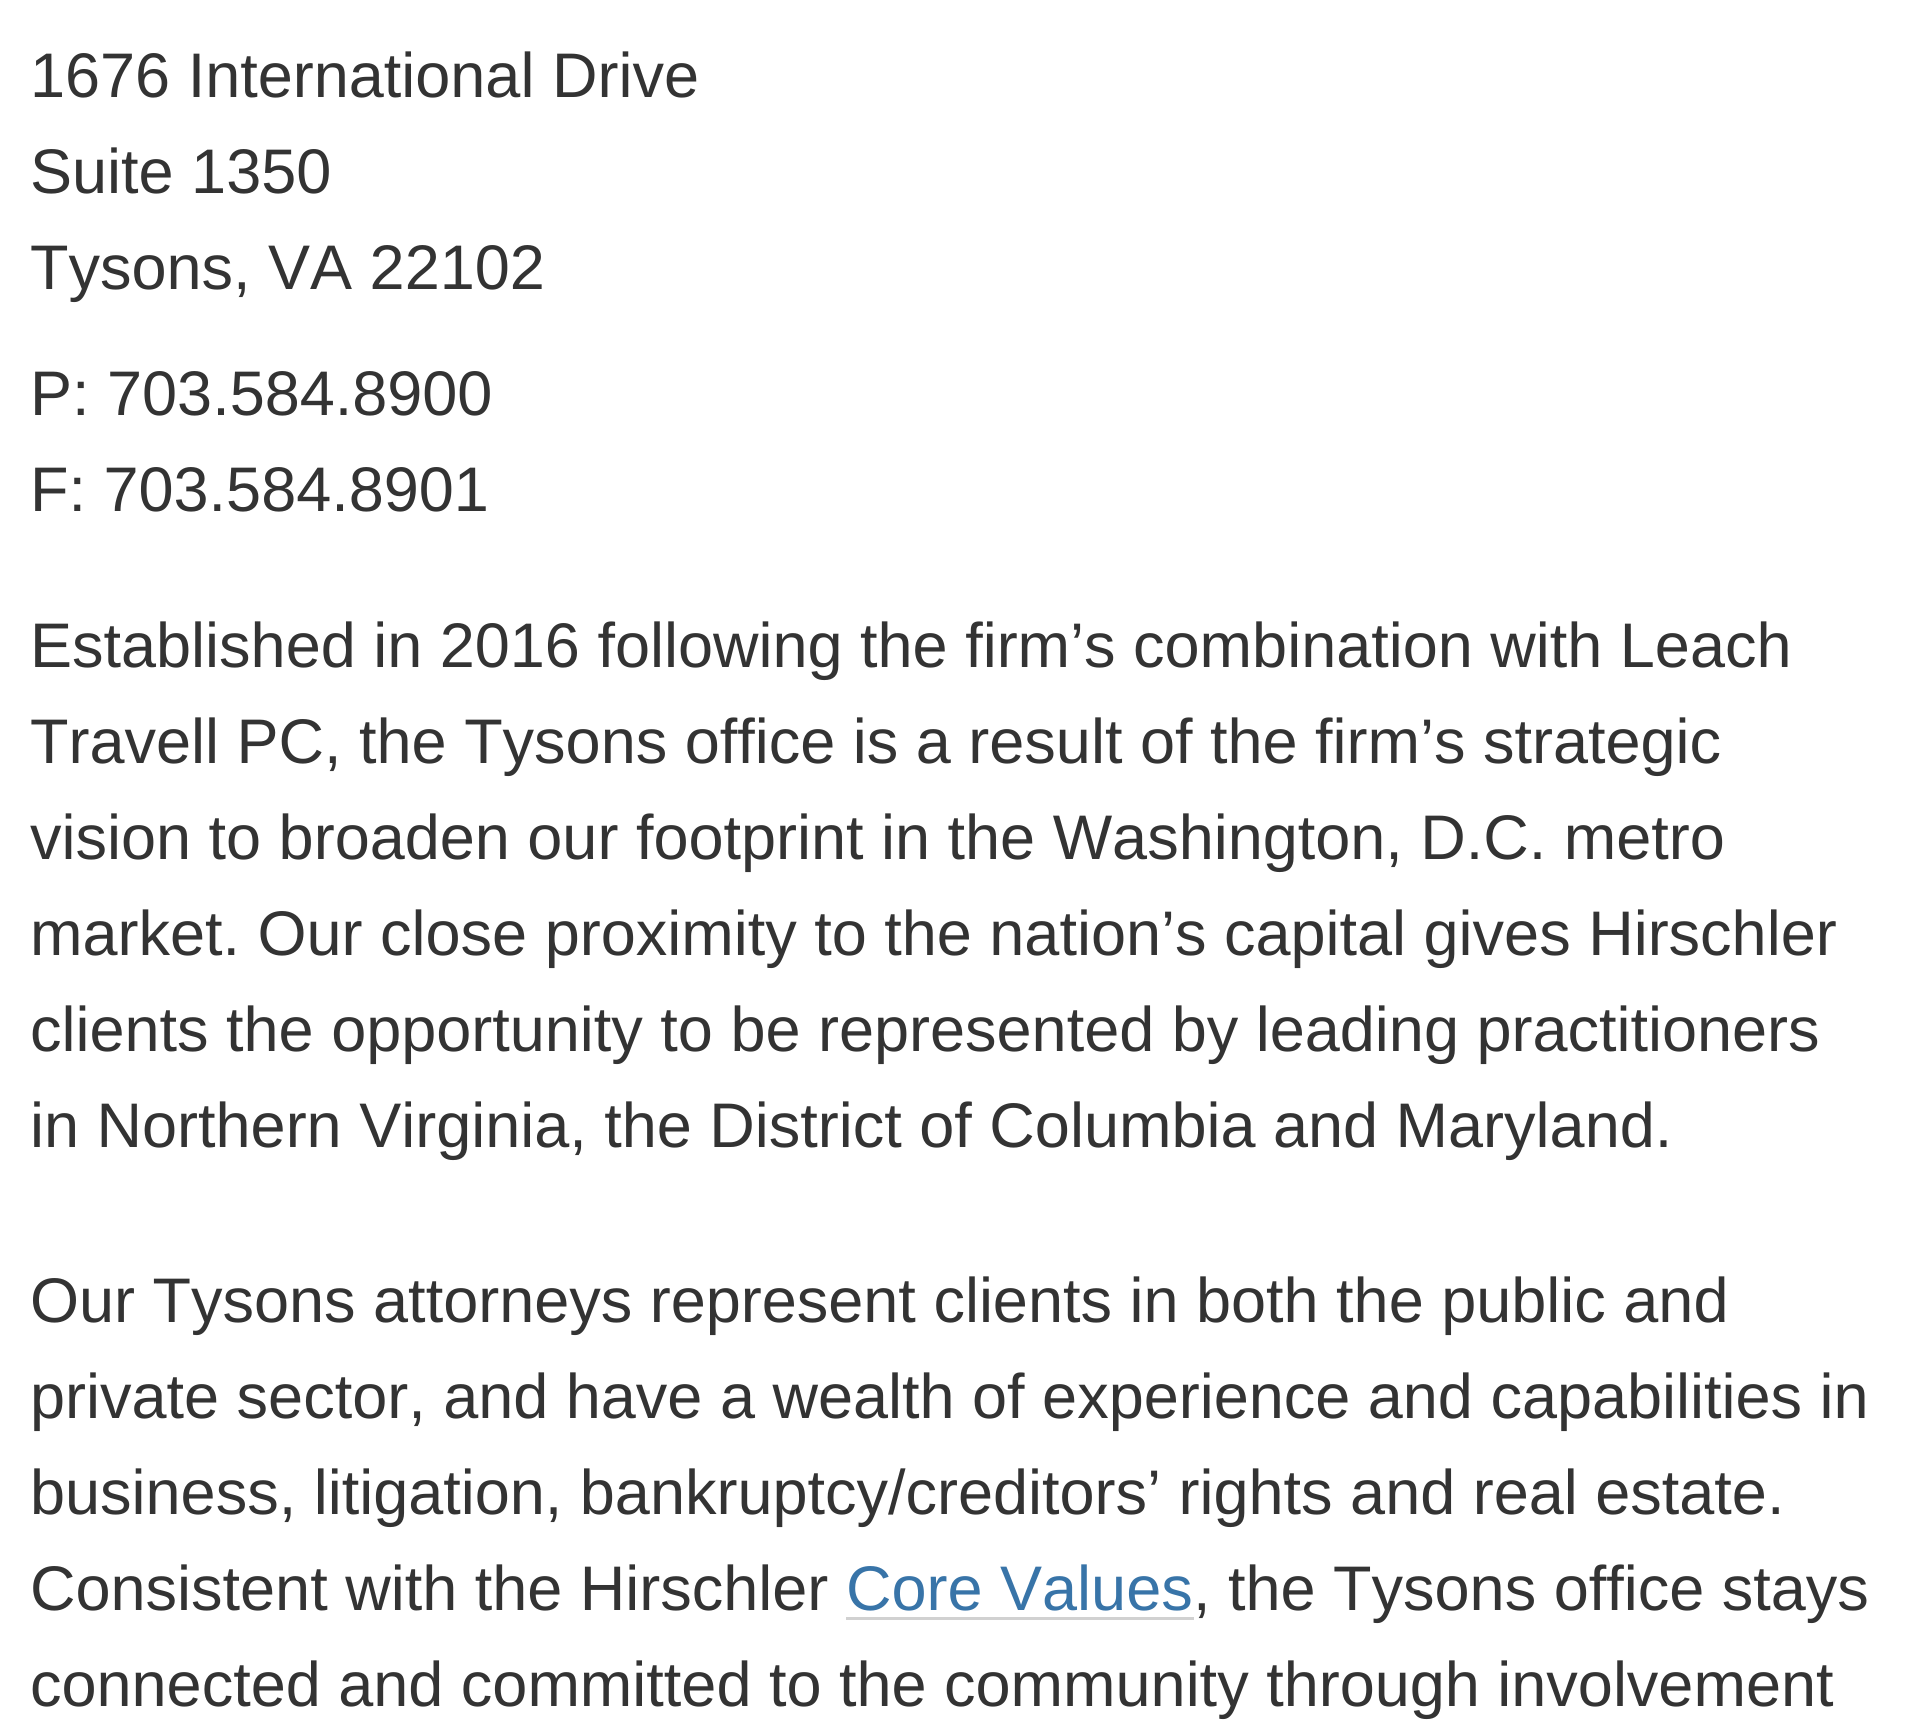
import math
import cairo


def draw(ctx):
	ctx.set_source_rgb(1, 1, 1)
	ctx.paint()
	ctx.select_font_face('Liberation Sans')
	ctx.set_font_size(63)
	ctx.set_source_rgb(0.2, 0.2, 0.2)
	for x, y, s in [
		(30, 97, '1676 International Drive'),
		(30, 193, 'Suite 1350'),
		(30, 289, 'Tysons, VA 22102'),
		(30, 415, 'P: 703.584.8900'),
		(30, 511, 'F: 703.584.8901'),
		(30, 667, 'Established in 2016 following the firm’s combination with Leach'),
		(30, 763, 'Travell PC, the Tysons office is a result of the firm’s strategic'),
		(30, 859, 'vision to broaden our footprint in the Washington, D.C. metro'),
		(30, 955, 'market. Our close proximity to the nation’s capital gives Hirschler'),
		(30, 1051, 'clients the opportunity to be represented by leading practitioners'),
		(30, 1147, 'in Northern Virginia, the District of Columbia and Maryland.'),
		(30, 1322, 'Our Tysons attorneys represent clients in both the public and'),
		(30, 1418, 'private sector, and have a wealth of experience and capabilities in'),
		(30, 1514, 'business, litigation, bankruptcy/creditors’ rights and real estate.'),
		(30, 1610, 'Consistent with the Hirschler'),
	]:
		ctx.move_to(x, y)
		ctx.show_text(s)
	ctx.set_source_rgb(0.22, 0.455, 0.659)
	ctx.move_to(846, 1610)
	ctx.show_text('Core Values')
	ctx.set_source_rgb(0.82, 0.82, 0.82)
	ctx.rectangle(846, 1617, 348, 3)
	ctx.fill()
	ctx.set_source_rgb(0.2, 0.2, 0.2)
	ctx.move_to(1193, 1610)
	ctx.show_text(', the Tysons office stays')
	ctx.move_to(30, 1706)
	ctx.show_text('connected and committed to the community through involvement')


surface = cairo.ImageSurface(cairo.FORMAT_RGB24, 1906, 1732)
ctx = cairo.Context(surface)
options = cairo.FontOptions()
options.set_hint_metrics(cairo.HINT_METRICS_OFF)
options.set_hint_style(cairo.HINT_STYLE_NONE)
ctx.set_font_options(options)
ctx.set_miter_limit(4)
draw(ctx)
surface.write_to_png('image.png')
